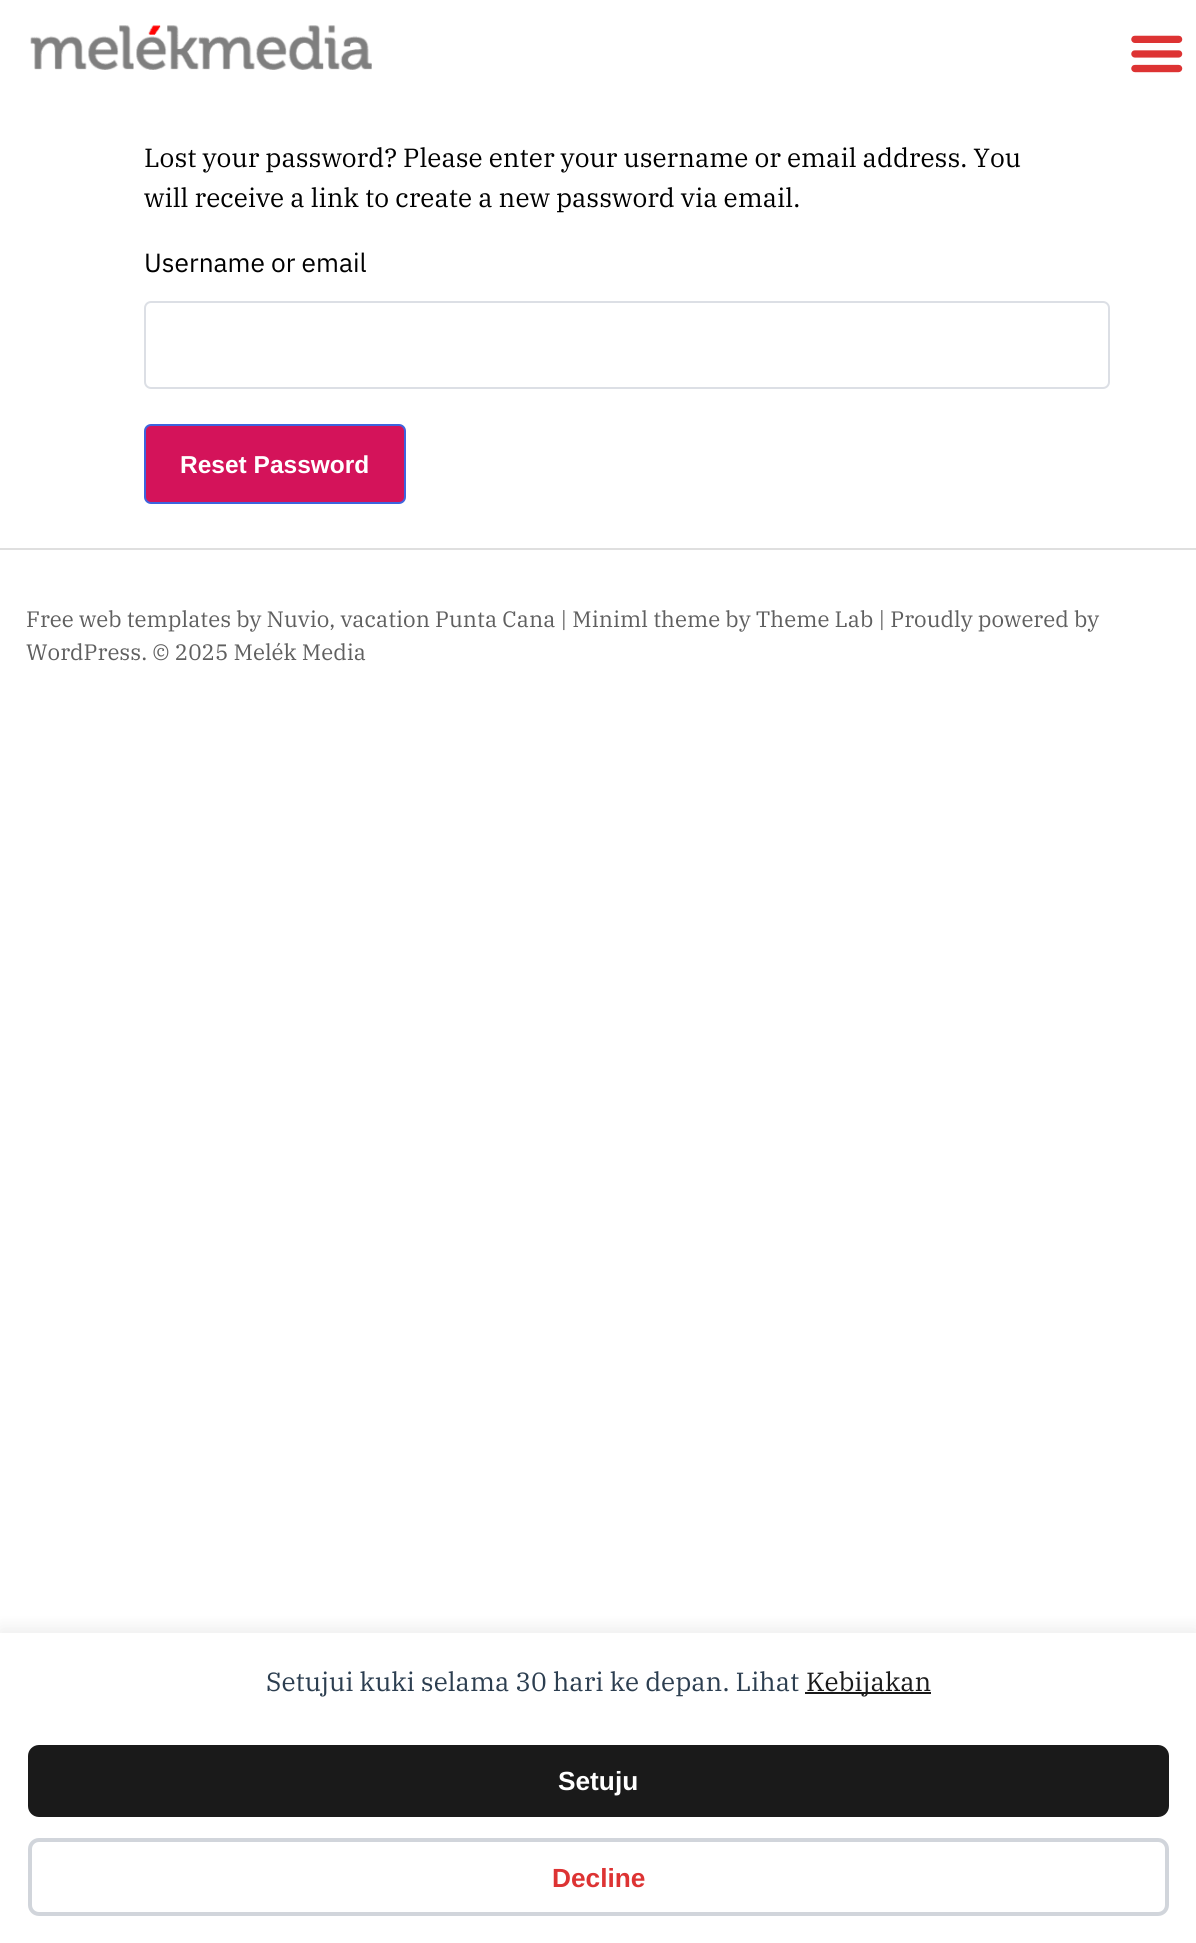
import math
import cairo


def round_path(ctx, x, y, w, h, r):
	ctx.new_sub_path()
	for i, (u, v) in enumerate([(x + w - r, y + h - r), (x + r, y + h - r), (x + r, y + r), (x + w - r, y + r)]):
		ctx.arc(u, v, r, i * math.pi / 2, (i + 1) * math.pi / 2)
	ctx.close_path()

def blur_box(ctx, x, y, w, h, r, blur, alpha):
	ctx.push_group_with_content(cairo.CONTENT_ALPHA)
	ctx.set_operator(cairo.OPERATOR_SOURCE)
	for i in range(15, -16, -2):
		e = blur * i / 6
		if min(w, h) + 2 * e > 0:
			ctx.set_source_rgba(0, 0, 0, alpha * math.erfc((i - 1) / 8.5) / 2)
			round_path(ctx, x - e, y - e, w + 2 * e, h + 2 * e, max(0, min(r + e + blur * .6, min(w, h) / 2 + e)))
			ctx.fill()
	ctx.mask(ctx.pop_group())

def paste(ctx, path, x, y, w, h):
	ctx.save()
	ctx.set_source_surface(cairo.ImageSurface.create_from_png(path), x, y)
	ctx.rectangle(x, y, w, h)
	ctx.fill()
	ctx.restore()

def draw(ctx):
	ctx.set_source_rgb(1, 1, 1)
	ctx.paint()
	paste(ctx, 'media/1.png', 1131, 35, 52, 38)
	paste(ctx, 'media/2.png', 30, 25, 342, 45)
	ctx.select_font_face('IBM Plex Serif')
	ctx.set_font_size(26.25)
	ctx.set_source_rgb(0, 0, 0)
	ctx.move_to(144, 167)
	ctx.show_text('Lost your password? Please enter your username or email address. You')
	ctx.move_to(144, 207)
	ctx.show_text('will receive a link to create a new password via email.')
	ctx.select_font_face('IBM Plex Sans')
	ctx.move_to(144, 272)
	ctx.show_text('Username or email')
	round_path(ctx, 145, 302, 964, 86, 6)
	ctx.set_source_rgb(0.863, 0.875, 0.898)
	ctx.stroke()
	ctx.set_source_rgb(0.831, 0.078, 0.353)
	round_path(ctx, 145, 425, 260, 78, 6)
	ctx.fill_preserve()
	ctx.set_source_rgb(0.243, 0.392, 0.871)
	ctx.stroke()
	ctx.select_font_face('Liberation Sans', cairo.FONT_SLANT_NORMAL, cairo.FONT_WEIGHT_BOLD)
	ctx.set_font_size(24.5)
	ctx.set_source_rgb(1, 1, 1)
	ctx.move_to(180, 473)
	ctx.show_text('Reset Password')
	ctx.set_source_rgb(0.875, 0.875, 0.875)
	ctx.rectangle(0, 548, 1196, 2)
	ctx.fill()
	ctx.select_font_face('IBM Plex Serif')
	ctx.set_font_size(22.3)
	ctx.set_source_rgb(0.373, 0.373, 0.373)
	ctx.move_to(26, 627)
	ctx.show_text('Free web templates by Nuvio, vacation Punta Cana | Miniml theme by Theme Lab | Proudly powered by')
	ctx.move_to(26, 660)
	ctx.show_text('WordPress. © 2025 Melék Media')
	ctx.set_source_rgb(0, 0, 0)
	blur_box(ctx, 0, 1629, 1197, 312, 0, 9, 0.08)
	ctx.set_source_rgb(1, 1, 1)
	ctx.rectangle(0, 1633, 1196, 310)
	ctx.fill()
	ctx.set_font_size(26.25)
	ctx.set_source_rgb(0.173, 0.243, 0.314)
	ctx.move_to(266, 1691)
	ctx.show_text('Setujui kuki selama 30 hari ke depan. Lihat')
	ctx.set_source_rgb(0.102, 0.102, 0.102)
	ctx.rectangle(805, 1692, 126, 2)
	ctx.fill()
	ctx.move_to(806, 1691)
	ctx.show_text('Kebijakan')
	round_path(ctx, 28, 1745, 1141, 72, 11)
	ctx.fill()
	ctx.select_font_face('Liberation Sans', cairo.FONT_SLANT_NORMAL, cairo.FONT_WEIGHT_BOLD)
	ctx.set_source_rgb(1, 1, 1)
	ctx.move_to(558, 1790)
	ctx.show_text('Setuju')
	round_path(ctx, 30, 1840, 1137, 74, 9)
	ctx.set_source_rgb(0.82, 0.835, 0.859)
	ctx.set_line_width(4)
	ctx.stroke()
	ctx.set_source_rgb(0.867, 0.2, 0.2)
	ctx.move_to(552, 1887)
	ctx.show_text('Decline')


surface = cairo.ImageSurface(cairo.FORMAT_RGB24, 1196, 1943)
ctx = cairo.Context(surface)
options = cairo.FontOptions()
options.set_hint_metrics(cairo.HINT_METRICS_OFF)
options.set_hint_style(cairo.HINT_STYLE_NONE)
ctx.set_font_options(options)
ctx.set_miter_limit(4)
draw(ctx)
surface.write_to_png('image.png')
